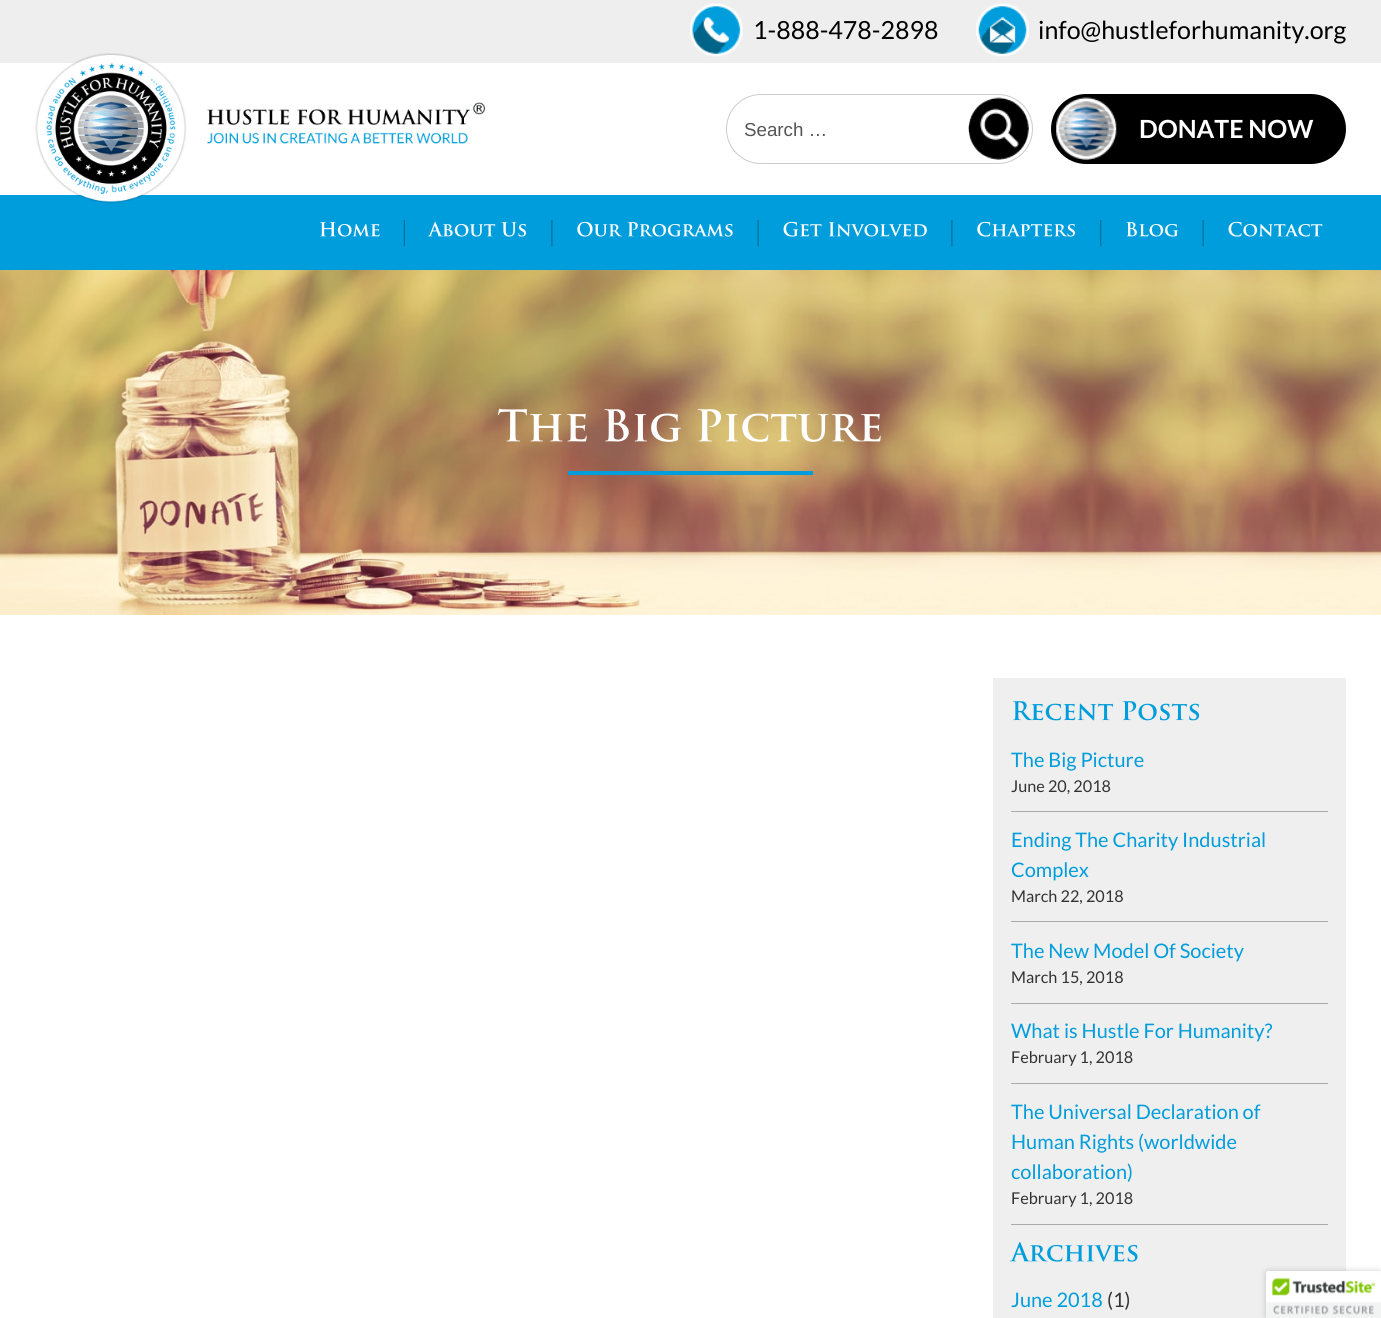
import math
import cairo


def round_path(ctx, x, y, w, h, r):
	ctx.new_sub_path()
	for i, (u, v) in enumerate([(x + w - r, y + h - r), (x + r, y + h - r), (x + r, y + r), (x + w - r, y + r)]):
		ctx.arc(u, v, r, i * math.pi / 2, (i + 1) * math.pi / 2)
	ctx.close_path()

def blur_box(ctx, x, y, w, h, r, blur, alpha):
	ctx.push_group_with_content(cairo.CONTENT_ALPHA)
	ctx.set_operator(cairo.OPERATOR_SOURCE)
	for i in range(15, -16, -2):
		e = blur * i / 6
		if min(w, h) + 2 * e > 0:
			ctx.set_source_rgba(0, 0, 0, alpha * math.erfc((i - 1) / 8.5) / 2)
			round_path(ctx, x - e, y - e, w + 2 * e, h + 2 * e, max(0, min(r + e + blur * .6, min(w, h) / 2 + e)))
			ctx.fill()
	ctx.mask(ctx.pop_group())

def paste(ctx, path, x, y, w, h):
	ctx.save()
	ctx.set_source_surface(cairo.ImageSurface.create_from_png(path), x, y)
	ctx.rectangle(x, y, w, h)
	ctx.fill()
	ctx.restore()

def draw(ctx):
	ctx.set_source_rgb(1, 1, 1)
	ctx.paint()
	ctx.set_source_rgb(0.933, 0.933, 0.933)
	ctx.rectangle(0, 0, 1381, 63)
	ctx.fill()
	paste(ctx, 'media/1.png', 690, 3, 53, 54)
	ctx.select_font_face('Lato')
	ctx.set_font_size(25)
	ctx.set_source_rgb(0, 0, 0)
	ctx.move_to(753, 39)
	ctx.show_text('1-888-478-2898')
	paste(ctx, 'media/2.png', 976, 3, 53, 54)
	ctx.move_to(1038, 39)
	ctx.show_text('info@hustleforhumanity.org')
	ctx.set_source_rgb(0, 0.616, 0.863)
	ctx.rectangle(0, 195, 1381, 75)
	ctx.fill()
	paste(ctx, 'media/3.png', 35, 53, 450, 151)
	round_path(ctx, 726.5, 94.5, 306, 69, 34.5)
	ctx.set_source_rgb(0.8, 0.8, 0.8)
	ctx.set_line_width(1)
	ctx.stroke()
	ctx.select_font_face('Liberation Sans')
	ctx.set_font_size(18.75)
	ctx.set_source_rgb(0.333, 0.333, 0.333)
	ctx.move_to(744, 136)
	ctx.show_text('Search …')
	paste(ctx, 'media/4.png', 968, 97, 61, 63)
	ctx.set_source_rgb(0, 0, 0)
	round_path(ctx, 1051, 94, 295, 70, 35)
	ctx.fill()
	paste(ctx, 'media/5.png', 1056, 97, 61, 63)
	ctx.select_font_face('Lato', cairo.FONT_SLANT_NORMAL, cairo.FONT_WEIGHT_BOLD)
	ctx.set_font_size(25)
	ctx.set_source_rgb(1, 1, 1)
	ctx.move_to(1139, 138)
	ctx.show_text('DONATE NOW')
	paste(ctx, 'media/6.png', 403, 220, 2, 27)
	paste(ctx, 'media/7.png', 320, 222, 60, 15)
	paste(ctx, 'media/8.png', 551, 220, 2, 27)
	paste(ctx, 'media/9.png', 427, 221, 99, 16)
	paste(ctx, 'media/10.png', 757, 220, 2, 27)
	paste(ctx, 'media/11.png', 577, 221, 156, 16)
	paste(ctx, 'media/8.png', 951, 220, 2, 27)
	paste(ctx, 'media/12.png', 783, 221, 144, 16)
	paste(ctx, 'media/13.png', 1100, 220, 2, 27)
	paste(ctx, 'media/14.png', 977, 221, 98, 16)
	paste(ctx, 'media/10.png', 1202, 220, 2, 27)
	paste(ctx, 'media/15.png', 1126, 222, 53, 15)
	paste(ctx, 'media/16.png', 1228, 221, 95, 16)
	paste(ctx, 'media/17.png', 0, 270, 1381, 345)
	paste(ctx, 'media/18.png', 498, 408, 383, 34)
	ctx.set_source_rgb(0, 0.616, 0.863)
	ctx.rectangle(568, 471, 245, 4)
	ctx.fill()
	ctx.set_source_rgb(0.937, 0.937, 0.937)
	ctx.rectangle(993, 678, 353, 640)
	ctx.fill()
	paste(ctx, 'media/19.png', 1012, 701, 188, 20)
	ctx.set_source_rgb(0.667, 0.667, 0.667)
	ctx.rectangle(1011, 811, 317, 1)
	ctx.fill()
	ctx.select_font_face('Lato')
	ctx.set_font_size(20)
	ctx.set_source_rgb(0, 0.616, 0.863)
	ctx.move_to(1011, 767)
	ctx.show_text('The Big Picture')
	ctx.set_font_size(16.25)
	ctx.set_source_rgb(0.2, 0.2, 0.2)
	ctx.move_to(1011, 792)
	ctx.show_text('June 20, 2018')
	ctx.set_source_rgb(0.667, 0.667, 0.667)
	ctx.rectangle(1011, 921, 317, 1)
	ctx.fill()
	ctx.set_font_size(20)
	ctx.set_source_rgb(0, 0.616, 0.863)
	ctx.move_to(1011, 847)
	ctx.show_text('Ending The Charity Industrial')
	ctx.move_to(1011, 877)
	ctx.show_text('Complex')
	ctx.set_font_size(16.25)
	ctx.set_source_rgb(0.2, 0.2, 0.2)
	ctx.move_to(1011, 902)
	ctx.show_text('March 22, 2018')
	ctx.set_source_rgb(0.667, 0.667, 0.667)
	ctx.rectangle(1011, 1003, 317, 1)
	ctx.fill()
	ctx.set_font_size(20)
	ctx.set_source_rgb(0, 0.616, 0.863)
	ctx.move_to(1011, 958)
	ctx.show_text('The New Model Of Society')
	ctx.set_font_size(16.25)
	ctx.set_source_rgb(0.2, 0.2, 0.2)
	ctx.move_to(1011, 983)
	ctx.show_text('March 15, 2018')
	ctx.set_source_rgb(0.667, 0.667, 0.667)
	ctx.rectangle(1011, 1083, 317, 1)
	ctx.fill()
	ctx.set_font_size(20)
	ctx.set_source_rgb(0, 0.616, 0.863)
	ctx.move_to(1011, 1038)
	ctx.show_text('What is Hustle For Humanity?')
	ctx.set_font_size(16.25)
	ctx.set_source_rgb(0.2, 0.2, 0.2)
	ctx.move_to(1011, 1063)
	ctx.show_text('February 1, 2018')
	ctx.set_source_rgb(0.667, 0.667, 0.667)
	ctx.rectangle(1011, 1224, 317, 1)
	ctx.fill()
	ctx.set_font_size(20)
	ctx.set_source_rgb(0, 0.616, 0.863)
	for x, y, s in [
		(1011, 1119, 'The Universal Declaration of'),
		(1011, 1149, 'Human Rights (worldwide'),
		(1011, 1179, 'collaboration)'),
	]:
		ctx.move_to(x, y)
		ctx.show_text(s)
	ctx.set_font_size(16.25)
	ctx.set_source_rgb(0.2, 0.2, 0.2)
	ctx.move_to(1011, 1204)
	ctx.show_text('February 1, 2018')
	paste(ctx, 'media/20.png', 1009, 1241, 129, 21)
	ctx.set_font_size(20)
	ctx.set_source_rgb(0, 0.616, 0.863)
	ctx.move_to(1011, 1307)
	ctx.show_text('June 2018')
	ctx.set_source_rgb(0.2, 0.2, 0.2)
	ctx.move_to(1107, 1307)
	ctx.show_text('(1)')
	ctx.set_source_rgb(0, 0, 0)
	blur_box(ctx, 1266, 1271, 115, 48, 2.5, 3, 0.2)
	ctx.set_source_rgb(1, 1, 1)
	ctx.new_path()
	ctx.move_to(1268.5, 1271)
	ctx.line_to(1381, 1271)
	ctx.line_to(1381, 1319)
	ctx.line_to(1266, 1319)
	ctx.line_to(1266, 1273.5)
	ctx.curve_to(1266, 1272, 1267, 1271, 1268.5, 1271)
	ctx.close_path()
	ctx.fill()
	paste(ctx, 'media/21.png', 1266, 1271, 115, 47)


surface = cairo.ImageSurface(cairo.FORMAT_RGB24, 1381, 1318)
ctx = cairo.Context(surface)
options = cairo.FontOptions()
options.set_hint_metrics(cairo.HINT_METRICS_OFF)
options.set_hint_style(cairo.HINT_STYLE_NONE)
ctx.set_font_options(options)
ctx.set_miter_limit(4)
draw(ctx)
surface.write_to_png('image.png')
